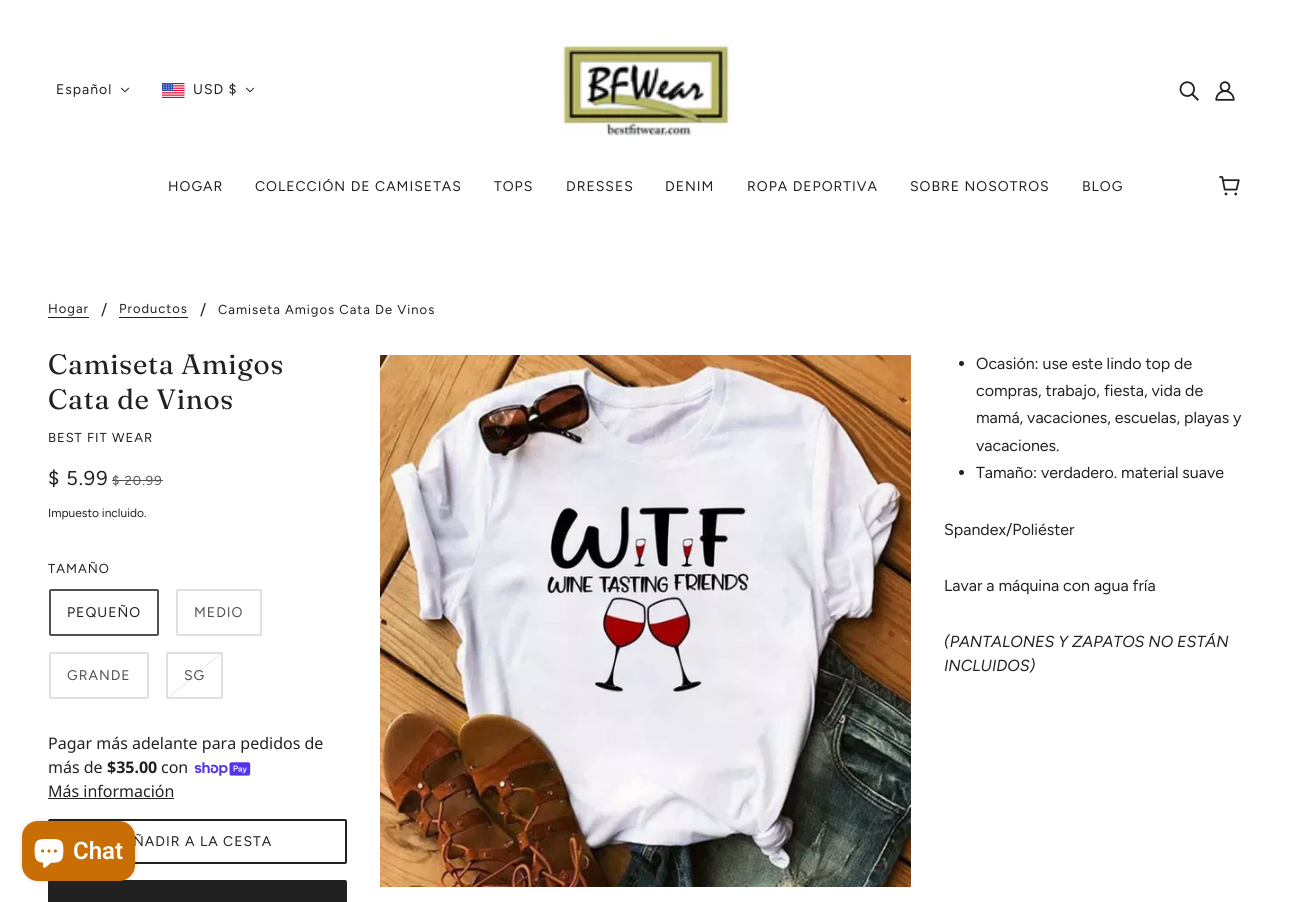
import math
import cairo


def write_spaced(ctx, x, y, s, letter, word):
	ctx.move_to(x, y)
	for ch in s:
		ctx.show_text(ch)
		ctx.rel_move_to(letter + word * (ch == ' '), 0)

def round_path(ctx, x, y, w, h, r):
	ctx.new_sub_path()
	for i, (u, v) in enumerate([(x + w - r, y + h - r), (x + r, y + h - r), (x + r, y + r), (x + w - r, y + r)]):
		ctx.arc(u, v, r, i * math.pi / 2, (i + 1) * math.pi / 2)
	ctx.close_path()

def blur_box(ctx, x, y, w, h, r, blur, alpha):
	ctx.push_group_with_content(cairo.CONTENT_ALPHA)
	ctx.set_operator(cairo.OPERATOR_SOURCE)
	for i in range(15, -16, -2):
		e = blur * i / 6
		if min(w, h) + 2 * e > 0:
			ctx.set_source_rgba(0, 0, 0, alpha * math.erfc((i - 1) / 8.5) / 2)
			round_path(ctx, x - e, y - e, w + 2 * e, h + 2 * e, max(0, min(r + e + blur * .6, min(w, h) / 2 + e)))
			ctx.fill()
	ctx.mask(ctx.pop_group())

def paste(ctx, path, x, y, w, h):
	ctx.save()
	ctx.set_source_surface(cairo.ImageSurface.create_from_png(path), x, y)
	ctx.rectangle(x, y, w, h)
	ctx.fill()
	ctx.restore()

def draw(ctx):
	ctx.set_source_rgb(1, 1, 1)
	ctx.paint()
	ctx.select_font_face('Figtree')
	ctx.set_font_size(14)
	ctx.set_source_rgb(0.129, 0.129, 0.129)
	write_spaced(ctx, 56, 94, 'Español', 1, 0)
	paste(ctx, 'media/1.png', 120, 87, 10, 6)
	paste(ctx, 'media/2.png', 162, 83, 23, 15)
	write_spaced(ctx, 193, 94, 'USD $', 1, 0)
	paste(ctx, 'media/1.png', 245, 87, 10, 6)
	paste(ctx, 'media/3.png', 560, 40, 172, 96)
	paste(ctx, 'media/4.png', 1179, 81, 20, 20)
	paste(ctx, 'media/5.png', 1215, 81, 20, 20)
	for x, y, s in [
		(168, 191, 'HOGAR'),
		(255, 191, 'COLECCIÓN DE CAMISETAS'),
		(494, 191, 'TOPS'),
		(566, 191, 'DRESSES'),
		(665, 191, 'DENIM'),
		(747, 191, 'ROPA DEPORTIVA'),
		(910, 191, 'SOBRE NOSOTROS'),
		(1082, 191, 'BLOG'),
	]:
		write_spaced(ctx, x, y, s, 1, 0)
	paste(ctx, 'media/6.png', 1219, 176, 21, 20)
	ctx.set_font_size(13)
	write_spaced(ctx, 48, 313, 'Hogar', 1, 0)
	ctx.rectangle(48, 317, 41, 1)
	ctx.fill()
	ctx.set_font_size(16)
	ctx.move_to(101, 315)
	ctx.show_text('/')
	ctx.set_font_size(13)
	write_spaced(ctx, 119, 313, 'Productos', 1, 0)
	ctx.rectangle(119, 317, 69, 1)
	ctx.fill()
	ctx.set_font_size(16)
	ctx.move_to(200, 315)
	ctx.show_text('/')
	ctx.set_font_size(13)
	write_spaced(ctx, 218, 314, 'Camiseta Amigos Cata De Vinos', 1, 0)
	ctx.select_font_face('Fraunces')
	ctx.set_font_size(28)
	write_spaced(ctx, 48, 374, 'Camiseta Amigos', 0.75, 0)
	write_spaced(ctx, 48, 409, 'Cata de Vinos', 0.75, 0)
	ctx.select_font_face('Figtree')
	ctx.set_font_size(13)
	write_spaced(ctx, 48, 442, 'BEST FIT WEAR', 1, 0)
	ctx.set_font_size(20)
	write_spaced(ctx, 48, 485, '$ 5.99', 1, 0)
	ctx.set_font_size(13)
	ctx.set_source_rgb(0.318, 0.318, 0.318)
	write_spaced(ctx, 112, 485, '$ 20.99', 1, 0)
	ctx.rectangle(112, 480, 51, 1)
	ctx.fill()
	ctx.set_font_size(12)
	ctx.set_source_rgb(0.129, 0.129, 0.129)
	ctx.move_to(48, 517)
	ctx.show_text('Impuesto incluido.')
	ctx.set_font_size(13)
	write_spaced(ctx, 48, 573, 'TAMAÑO', 1, 0)
	round_path(ctx, 50, 590, 108, 45, 1)
	ctx.set_source_rgb(0.318, 0.318, 0.318)
	ctx.stroke()
	ctx.set_font_size(14)
	ctx.set_source_rgb(0.129, 0.129, 0.129)
	write_spaced(ctx, 67, 617, 'PEQUEÑO', 1, 0)
	round_path(ctx, 177, 590, 84, 45, 1)
	ctx.set_source_rgb(0.878, 0.878, 0.878)
	ctx.stroke()
	ctx.set_source_rgb(0.318, 0.318, 0.318)
	write_spaced(ctx, 194, 617, 'MEDIO', 1, 0)
	round_path(ctx, 50, 653, 98, 45, 1)
	ctx.set_source_rgb(0.878, 0.878, 0.878)
	ctx.stroke()
	ctx.set_source_rgb(0.318, 0.318, 0.318)
	write_spaced(ctx, 67, 680, 'GRANDE', 1, 0)
	gradient = cairo.LinearGradient(216, 701, 173, 650)
	gradient.add_color_stop_rgba(0.49, 1, 1, 1, 1)
	gradient.add_color_stop_rgba(0.5, 0.878, 0.878, 0.878, 1)
	gradient.add_color_stop_rgba(0.51, 1, 1, 1, 1)
	ctx.set_source(gradient)
	ctx.rectangle(169, 654, 51, 43)
	ctx.fill()
	round_path(ctx, 167, 653, 55, 45, 1)
	ctx.set_source_rgb(0.878, 0.878, 0.878)
	ctx.stroke()
	ctx.set_source_rgb(0.318, 0.318, 0.318)
	write_spaced(ctx, 184, 680, 'SG', 1, 0)
	ctx.select_font_face('Noto Sans')
	ctx.set_font_size(16)
	ctx.set_source_rgb(0.129, 0.129, 0.129)
	ctx.move_to(48, 749)
	ctx.show_text('Pagar más adelante para pedidos de')
	ctx.move_to(48, 773)
	ctx.show_text('más de')
	ctx.select_font_face('Noto Sans', cairo.FONT_SLANT_NORMAL, cairo.FONT_WEIGHT_BOLD)
	ctx.move_to(107, 773)
	ctx.show_text('$35.00')
	ctx.select_font_face('Noto Sans')
	ctx.move_to(161, 773)
	ctx.show_text('con')
	paste(ctx, 'media/7.png', 194, 762, 57, 14)
	ctx.move_to(48, 797)
	ctx.show_text('Más información')
	ctx.rectangle(48, 798, 126, 1)
	ctx.fill()
	round_path(ctx, 49, 820, 297, 43, 1)
	ctx.stroke()
	ctx.select_font_face('Figtree')
	ctx.set_font_size(14)
	write_spaced(ctx, 133, 846, 'ÑADIR A LA CESTA', 1, 0)
	round_path(ctx, 48, 880, 299, 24, 2)
	ctx.fill()
	paste(ctx, 'media/8.png', 380, 355, 531, 532)
	ctx.arc(961.5, 363.5, 2.5, 0, 2 * math.pi)
	ctx.fill()
	ctx.set_font_size(16)
	for x, y, s in [
		(976, 369, 'Ocasión: use este lindo top de'),
		(976, 396, 'compras, trabajo, fiesta, vida de'),
		(976, 423, 'mamá, vacaciones, escuelas, playas y'),
		(976, 451, 'vacaciones.'),
	]:
		ctx.move_to(x, y)
		ctx.show_text(s)
	ctx.new_path()
	ctx.arc(961.5, 472.5, 2.5, 0, 2 * math.pi)
	ctx.fill()
	for x, y, s in [
		(976, 478, 'Tamaño: verdadero. material suave'),
		(944, 535, 'Spandex/Poliéster'),
		(944, 591, 'Lavar a máquina con agua fría'),
	]:
		ctx.move_to(x, y)
		ctx.show_text(s)
	ctx.select_font_face('Figtree', cairo.FONT_SLANT_ITALIC)
	ctx.move_to(944, 647)
	ctx.show_text('(PANTALONES Y ZAPATOS NO ESTÁN')
	ctx.move_to(944, 671)
	ctx.show_text('INCLUIDOS)')
	ctx.set_source_rgb(0, 0, 0)
	blur_box(ctx, 22, 821, 113, 60, 16, 2.5, 0.15)
	ctx.set_source_rgb(0.788, 0.431, 0.016)
	round_path(ctx, 22, 821, 113, 60, 16)
	ctx.fill()
	paste(ctx, 'media/9.png', 34, 839, 30, 29)
	ctx.select_font_face('Roboto SemiBold')
	ctx.set_font_size(24)
	ctx.set_source_rgb(1, 1, 1)
	ctx.move_to(73, 859)
	ctx.show_text('Chat')


surface = cairo.ImageSurface(cairo.FORMAT_RGB24, 1291, 902)
ctx = cairo.Context(surface)
options = cairo.FontOptions()
options.set_hint_metrics(cairo.HINT_METRICS_OFF)
options.set_hint_style(cairo.HINT_STYLE_NONE)
ctx.set_font_options(options)
ctx.set_miter_limit(4)
draw(ctx)
surface.write_to_png('image.png')
